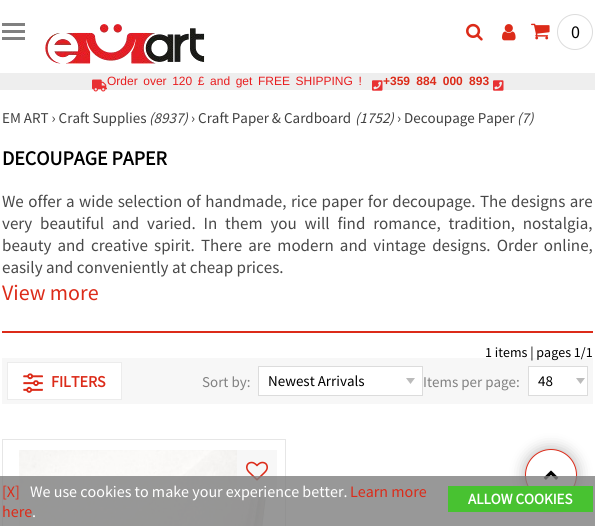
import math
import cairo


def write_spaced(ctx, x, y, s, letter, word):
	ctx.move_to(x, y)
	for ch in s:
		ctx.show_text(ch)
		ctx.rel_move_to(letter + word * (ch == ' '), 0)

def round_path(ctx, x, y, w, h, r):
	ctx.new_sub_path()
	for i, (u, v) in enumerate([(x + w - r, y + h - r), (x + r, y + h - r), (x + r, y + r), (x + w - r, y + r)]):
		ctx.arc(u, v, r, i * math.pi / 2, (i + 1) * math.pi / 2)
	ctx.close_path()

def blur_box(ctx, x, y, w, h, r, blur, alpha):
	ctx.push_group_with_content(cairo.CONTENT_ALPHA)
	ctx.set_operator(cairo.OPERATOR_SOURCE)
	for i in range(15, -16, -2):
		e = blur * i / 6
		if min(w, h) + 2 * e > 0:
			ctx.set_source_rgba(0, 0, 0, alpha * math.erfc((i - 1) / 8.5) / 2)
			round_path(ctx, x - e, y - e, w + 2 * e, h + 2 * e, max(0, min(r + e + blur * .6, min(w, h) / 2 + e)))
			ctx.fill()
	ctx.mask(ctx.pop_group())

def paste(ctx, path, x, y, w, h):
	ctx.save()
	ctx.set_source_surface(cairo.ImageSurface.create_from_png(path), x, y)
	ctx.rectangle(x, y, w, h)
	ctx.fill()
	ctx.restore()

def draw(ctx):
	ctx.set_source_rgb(1, 1, 1)
	ctx.paint()
	ctx.set_source_rgb(0.502, 0.502, 0.502)
	ctx.rectangle(2, 30, 23, 3)
	ctx.rectangle(2, 23, 23, 3)
	ctx.rectangle(2, 37, 23, 3)
	ctx.fill()
	paste(ctx, 'media/1.png', 45, 24, 160, 40)
	paste(ctx, 'media/2.png', 466, 23, 17, 18)
	paste(ctx, 'media/3.png', 502, 24, 14, 17)
	paste(ctx, 'media/4.png', 531, 23, 19, 17)
	ctx.arc(575, 32, 17.5, 0, 2 * math.pi)
	ctx.set_source_rgb(0.863, 0.863, 0.863)
	ctx.set_line_width(1)
	ctx.stroke()
	ctx.select_font_face('Source Sans Pro')
	ctx.set_font_size(18)
	ctx.set_source_rgb(0, 0, 0)
	ctx.move_to(571, 38)
	ctx.show_text('0')
	ctx.set_source_rgb(0.933, 0.933, 0.933)
	ctx.rectangle(0, 73, 595, 17)
	ctx.fill()
	paste(ctx, 'media/5.png', 92, 79, 15, 13)
	ctx.select_font_face('Liberation Sans')
	ctx.set_font_size(12)
	ctx.set_source_rgb(0.91, 0.114, 0.122)
	write_spaced(ctx, 107, 85, 'Order over 120 £ and get FREE SHIPPING !', 0, 2.25)
	paste(ctx, 'media/6.png', 372, 80, 11, 11)
	ctx.select_font_face('Liberation Sans', cairo.FONT_SLANT_NORMAL, cairo.FONT_WEIGHT_BOLD)
	ctx.set_source_rgb(0.863, 0.169, 0.098)
	write_spaced(ctx, 383, 85, '+359 884 000 893', 0, 3)
	paste(ctx, 'media/6.png', 493, 80, 11, 11)
	ctx.select_font_face('Source Sans Pro')
	ctx.set_font_size(15)
	ctx.set_source_rgb(0.251, 0.251, 0.251)
	ctx.move_to(2, 123)
	ctx.show_text('EM ART › Craft Supplies')
	ctx.select_font_face('Source Sans Pro', cairo.FONT_SLANT_ITALIC)
	ctx.move_to(149, 123)
	ctx.show_text('(8937)')
	ctx.select_font_face('Source Sans Pro')
	ctx.move_to(191, 123)
	ctx.show_text('› Craft Paper & Cardboard')
	ctx.select_font_face('Source Sans Pro', cairo.FONT_SLANT_ITALIC)
	ctx.move_to(355, 123)
	ctx.show_text('(1752)')
	ctx.select_font_face('Source Sans Pro')
	ctx.move_to(397, 123)
	ctx.show_text('› Decoupage Paper')
	ctx.select_font_face('Source Sans Pro', cairo.FONT_SLANT_ITALIC)
	ctx.move_to(517, 123)
	ctx.show_text('(7)')
	ctx.select_font_face('Source Sans Pro', cairo.FONT_SLANT_NORMAL, cairo.FONT_WEIGHT_BOLD)
	ctx.set_font_size(20)
	ctx.set_source_rgb(0, 0, 0)
	ctx.move_to(2, 165)
	ctx.show_text('DECOUPAGE PAPER')
	ctx.select_font_face('Source Sans Pro')
	ctx.set_font_size(17)
	ctx.set_source_rgb(0.282, 0.282, 0.282)
	write_spaced(ctx, 2, 207, 'We offer a wide selection of handmade, rice paper for decoupage. The designs are', 0, 1)
	write_spaced(ctx, 2, 229, 'very beautiful and varied. In them you will find romance, tradition, nostalgia,', 0, 4.4)
	write_spaced(ctx, 2, 251, 'beauty and creative spirit. There are modern and vintage designs. Order online,', 0, 2.75)
	ctx.move_to(2, 273)
	ctx.show_text('easily and conveniently at cheap prices.')
	ctx.set_font_size(22)
	ctx.set_source_rgb(0.863, 0.169, 0.098)
	ctx.move_to(2, 300)
	ctx.show_text('View more')
	ctx.rectangle(2, 331, 591, 2)
	ctx.fill()
	ctx.set_source_rgb(0.965, 0.965, 0.965)
	ctx.rectangle(2, 358, 591, 46)
	ctx.fill()
	ctx.set_font_size(14)
	ctx.set_source_rgb(0, 0, 0)
	ctx.move_to(485, 357)
	ctx.show_text('1 items | pages 1/1')
	ctx.set_source_rgb(1, 1, 1)
	ctx.rectangle(7.5, 362.5, 114, 37)
	ctx.fill_preserve()
	ctx.set_source_rgb(0.925, 0.925, 0.925)
	ctx.stroke()
	paste(ctx, 'media/7.png', 23, 373, 20, 20)
	ctx.select_font_face('Source Sans Pro', cairo.FONT_SLANT_NORMAL, cairo.FONT_WEIGHT_BOLD)
	ctx.set_font_size(16)
	ctx.set_source_rgb(0.863, 0.169, 0.098)
	ctx.move_to(51, 387)
	ctx.show_text('FILTERS')
	ctx.select_font_face('Source Sans Pro')
	ctx.set_font_size(15)
	ctx.set_source_rgb(0.506, 0.506, 0.506)
	ctx.move_to(202, 387)
	ctx.show_text('Sort by:')
	ctx.set_source_rgb(1, 1, 1)
	ctx.rectangle(259, 367, 163, 28)
	ctx.fill()
	paste(ctx, 'media/8.png', 406, 378, 9, 6)
	ctx.rectangle(258.5, 366.5, 164, 29)
	ctx.set_source_rgb(0.863, 0.863, 0.863)
	ctx.stroke()
	ctx.set_source_rgb(0, 0, 0)
	ctx.move_to(268, 386)
	ctx.show_text('Newest Arrivals')
	ctx.set_source_rgb(0.506, 0.506, 0.506)
	ctx.move_to(423, 387)
	ctx.show_text('Items per page:')
	ctx.set_source_rgb(1, 1, 1)
	ctx.rectangle(529, 367, 58, 28)
	ctx.fill()
	paste(ctx, 'media/8.png', 576, 378, 9, 6)
	ctx.rectangle(528.5, 366.5, 59, 29)
	ctx.set_source_rgb(0.863, 0.863, 0.863)
	ctx.stroke()
	ctx.set_source_rgb(0, 0, 0)
	ctx.move_to(538, 386)
	ctx.show_text('48')
	ctx.rectangle(2.5, 439.5, 283, 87)
	ctx.set_source_rgb(0.902, 0.902, 0.902)
	ctx.stroke()
	paste(ctx, 'media/9.png', 19, 450, 250, 76)
	ctx.set_source_rgb(0.965, 0.965, 0.965)
	ctx.rectangle(237, 450, 40, 40)
	ctx.fill()
	paste(ctx, 'media/10.png', 246, 461, 22, 20)
	ctx.set_source_rgb(0, 0, 0)
	blur_box(ctx, 525, 449, 52, 52, 26, 7.5, 0.3)
	ctx.set_source_rgb(1, 1, 1)
	ctx.arc(551, 475, 25.5, 0, 2 * math.pi)
	ctx.fill_preserve()
	ctx.set_source_rgb(0.863, 0.169, 0.098)
	ctx.stroke()
	paste(ctx, 'media/11.png', 543, 470, 16, 10)
	ctx.set_source_rgba(0.498, 0.498, 0.498, 0.8)
	ctx.rectangle(0, 476, 595, 50)
	ctx.fill()
	ctx.set_font_size(16)
	ctx.set_source_rgb(0.863, 0.169, 0.098)
	ctx.move_to(2, 497)
	ctx.show_text('[X]')
	ctx.set_source_rgb(1, 1, 1)
	ctx.move_to(30, 497)
	ctx.show_text('We use cookies to make your experience better.')
	ctx.set_source_rgb(0.863, 0.169, 0.098)
	ctx.move_to(350, 497)
	ctx.show_text('Learn more')
	ctx.move_to(2, 517)
	ctx.show_text('here')
	ctx.set_source_rgb(1, 1, 1)
	ctx.move_to(32, 517)
	ctx.show_text('.')
	ctx.set_source_rgb(0.282, 0.761, 0.192)
	ctx.rectangle(448, 486, 145, 26)
	ctx.fill()
	ctx.select_font_face('Source Sans Pro', cairo.FONT_SLANT_NORMAL, cairo.FONT_WEIGHT_BOLD)
	ctx.set_font_size(15)
	ctx.set_source_rgb(1, 1, 1)
	ctx.move_to(468, 504)
	ctx.show_text('ALLOW COOKIES')


surface = cairo.ImageSurface(cairo.FORMAT_RGB24, 595, 526)
ctx = cairo.Context(surface)
options = cairo.FontOptions()
options.set_hint_metrics(cairo.HINT_METRICS_OFF)
options.set_hint_style(cairo.HINT_STYLE_NONE)
ctx.set_font_options(options)
ctx.set_miter_limit(4)
draw(ctx)
surface.write_to_png('image.png')
